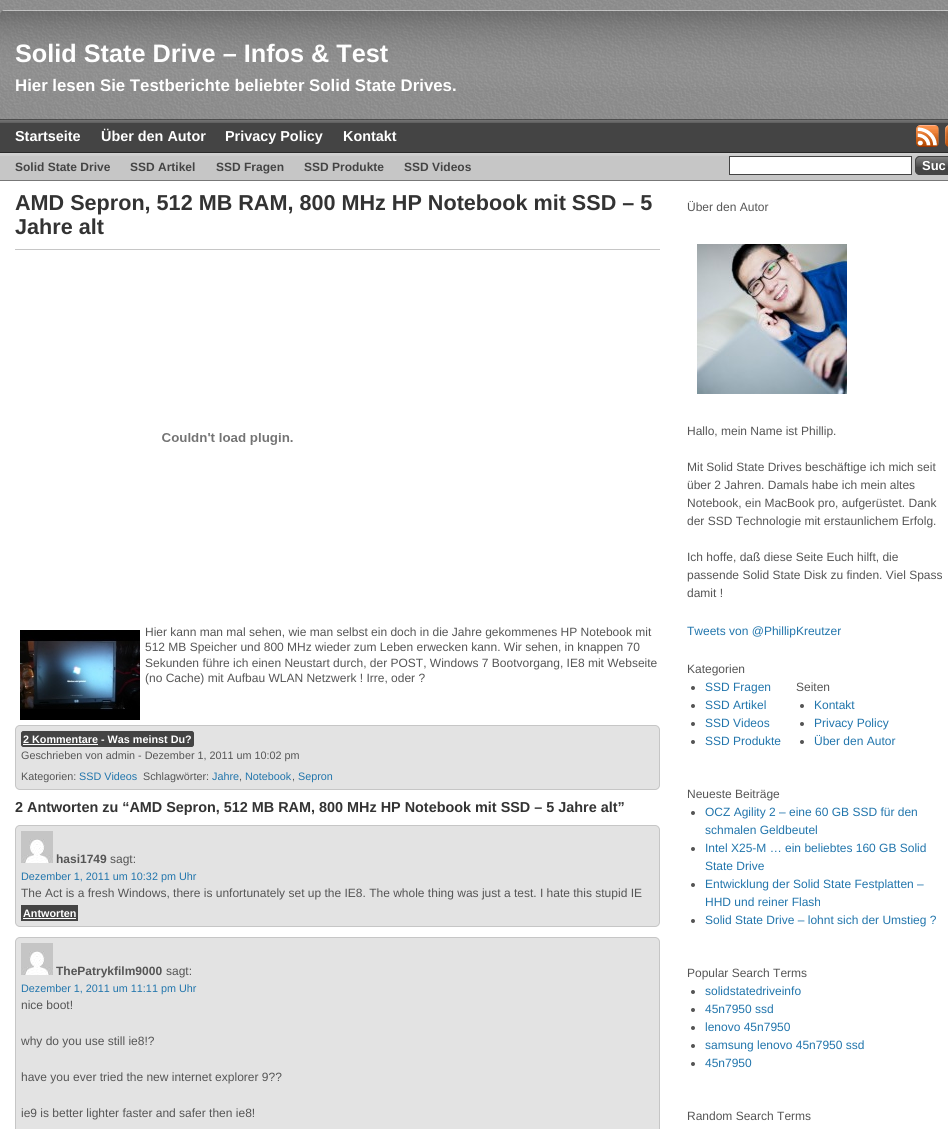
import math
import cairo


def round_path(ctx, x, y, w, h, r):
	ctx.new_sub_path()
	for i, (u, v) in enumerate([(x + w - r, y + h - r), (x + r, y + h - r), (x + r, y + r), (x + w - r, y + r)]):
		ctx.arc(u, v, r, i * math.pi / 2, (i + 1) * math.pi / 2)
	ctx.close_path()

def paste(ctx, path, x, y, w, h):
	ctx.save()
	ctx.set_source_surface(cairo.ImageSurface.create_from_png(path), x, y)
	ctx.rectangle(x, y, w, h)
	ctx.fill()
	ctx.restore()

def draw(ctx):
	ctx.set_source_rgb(0.541, 0.541, 0.541)
	ctx.paint()
	paste(ctx, 'media/1.png', 0, 0, 948, 120)
	paste(ctx, 'media/2.png', 0, 10, 948, 110)
	ctx.select_font_face('Liberation Sans', cairo.FONT_SLANT_NORMAL, cairo.FONT_WEIGHT_BOLD)
	ctx.set_font_size(25.25)
	ctx.set_source_rgb(1, 1, 1)
	ctx.move_to(15, 62)
	ctx.show_text('Solid State Drive – Infos & Test')
	ctx.set_font_size(16.8)
	ctx.move_to(15, 91)
	ctx.show_text('Hier lesen Sie Testberichte beliebter Solid State Drives.')
	ctx.set_source_rgb(0.267, 0.267, 0.267)
	ctx.rectangle(0, 120, 948, 33)
	ctx.fill()
	paste(ctx, 'media/3.png', 0, 120, 948, 33)
	ctx.set_font_size(14.4)
	ctx.set_source_rgb(1, 1, 1)
	for x, y, s in [
		(15, 141, 'Startseite'),
		(101, 141, 'Über den Autor'),
		(225, 141, 'Privacy Policy'),
		(343, 141, 'Kontakt'),
	]:
		ctx.move_to(x, y)
		ctx.show_text(s)
	paste(ctx, 'media/4.png', 916, 125, 23, 22)
	paste(ctx, 'media/5.png', 945, 125, 3, 22)
	ctx.set_source_rgb(0.776, 0.776, 0.776)
	ctx.rectangle(0, 153, 948, 28)
	ctx.fill()
	paste(ctx, 'media/6.png', 0, 153, 948, 28)
	ctx.set_font_size(12)
	ctx.set_source_rgb(0.267, 0.267, 0.267)
	for x, y, s in [
		(15, 171, 'Solid State Drive'),
		(130, 171, 'SSD Artikel'),
		(216, 171, 'SSD Fragen'),
		(304, 171, 'SSD Produkte'),
		(404, 171, 'SSD Videos'),
	]:
		ctx.move_to(x, y)
		ctx.show_text(s)
	ctx.set_source_rgb(1, 1, 1)
	ctx.rectangle(729.5, 156.5, 182, 18)
	ctx.fill_preserve()
	ctx.set_source_rgb(0.267, 0.267, 0.267)
	ctx.set_line_width(1)
	ctx.stroke()
	round_path(ctx, 915, 156, 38, 19, 5)
	ctx.fill()
	paste(ctx, 'media/7.png', 915, 157, 33, 10)
	round_path(ctx, 915.5, 156.5, 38, 18, 4.5)
	ctx.stroke()
	ctx.set_font_size(13)
	ctx.set_source_rgb(1, 1, 1)
	ctx.move_to(922, 170)
	ctx.show_text('Suc')
	ctx.rectangle(0, 181, 948, 948)
	ctx.fill()
	ctx.set_source_rgb(0.776, 0.776, 0.776)
	ctx.rectangle(15, 249, 645, 1)
	ctx.fill()
	ctx.set_font_size(21.6)
	ctx.set_source_rgb(0.2, 0.2, 0.2)
	ctx.move_to(15, 210)
	ctx.show_text('AMD Sepron, 512 MB RAM, 800 MHz HP Notebook mit SSD – 5')
	ctx.move_to(15, 234)
	ctx.show_text('Jahre alt')
	paste(ctx, 'media/8.png', 162, 433, 131, 12)
	paste(ctx, 'media/9.png', 20, 630, 120, 90)
	ctx.select_font_face('Liberation Sans')
	ctx.set_font_size(12)
	ctx.set_source_rgb(0.333, 0.333, 0.333)
	for x, y, s in [
		(145, 636, 'Hier kann man mal sehen, wie man selbst ein doch in die Jahre gekommenes HP Notebook mit'),
		(145, 651, '512 MB Speicher und 800 MHz wieder zum Leben erwecken kann. Wir sehen, in knappen 70'),
		(145, 667, 'Sekunden führe ich einen Neustart durch, der POST, Windows 7 Bootvorgang, IE8 mit Webseite'),
		(145, 682, '(no Cache) mit Aufbau WLAN Netzwerk ! Irre, oder ?'),
	]:
		ctx.move_to(x, y)
		ctx.show_text(s)
	ctx.set_source_rgb(0.89, 0.89, 0.89)
	round_path(ctx, 15.5, 725.5, 644, 64, 4.5)
	ctx.fill_preserve()
	ctx.set_source_rgb(0.776, 0.776, 0.776)
	ctx.stroke()
	ctx.set_source_rgb(0.267, 0.267, 0.267)
	ctx.new_path()
	ctx.move_to(24, 731)
	ctx.line_to(98, 731)
	ctx.line_to(98, 747)
	ctx.line_to(24, 747)
	ctx.curve_to(22.5, 747, 21, 745.5, 21, 744)
	ctx.line_to(21, 734)
	ctx.curve_to(21, 732.5, 22.5, 731, 24, 731)
	ctx.close_path()
	ctx.fill()
	ctx.set_fill_rule(cairo.FILL_RULE_EVEN_ODD)
	ctx.new_path()
	ctx.move_to(24, 731)
	ctx.line_to(98, 731)
	ctx.line_to(98, 747)
	ctx.line_to(24, 747)
	ctx.curve_to(22, 747, 21, 746, 21, 744)
	ctx.line_to(21, 734)
	ctx.curve_to(21, 732, 22, 731, 24, 731)
	ctx.close_path()
	ctx.move_to(24, 732)
	ctx.line_to(98, 732)
	ctx.line_to(98, 746)
	ctx.line_to(24, 746)
	ctx.curve_to(23, 746, 22, 745, 22, 744)
	ctx.line_to(22, 734)
	ctx.curve_to(22, 733, 23, 732, 24, 732)
	ctx.close_path()
	ctx.fill()
	ctx.new_path()
	ctx.move_to(98, 731)
	ctx.line_to(191, 731)
	ctx.curve_to(192.5, 731, 194, 732.5, 194, 734)
	ctx.line_to(194, 744)
	ctx.curve_to(194, 745.5, 192.5, 747, 191, 747)
	ctx.line_to(98, 747)
	ctx.close_path()
	ctx.fill()
	ctx.new_path()
	ctx.move_to(98, 731)
	ctx.line_to(191, 731)
	ctx.curve_to(193, 731, 194, 732, 194, 734)
	ctx.line_to(194, 744)
	ctx.curve_to(194, 746, 193, 747, 191, 747)
	ctx.line_to(98, 747)
	ctx.close_path()
	ctx.move_to(98, 732)
	ctx.line_to(191, 732)
	ctx.curve_to(192, 732, 193, 733, 193, 734)
	ctx.line_to(193, 744)
	ctx.curve_to(193, 745, 192, 746, 191, 746)
	ctx.line_to(98, 746)
	ctx.close_path()
	ctx.fill()
	ctx.select_font_face('Liberation Sans', cairo.FONT_SLANT_NORMAL, cairo.FONT_WEIGHT_BOLD)
	ctx.set_font_size(10.8)
	ctx.set_source_rgb(1, 1, 1)
	ctx.move_to(23, 743)
	ctx.show_text('2 Kommentare - Was meinst Du?')
	ctx.rectangle(23, 744, 75, 1)
	ctx.fill()
	ctx.select_font_face('Liberation Sans')
	ctx.set_source_rgb(0.333, 0.333, 0.333)
	ctx.move_to(21, 759)
	ctx.show_text('Geschrieben von admin - Dezember 1, 2011 um 10:02 pm')
	ctx.move_to(21, 780)
	ctx.show_text('Kategorien:')
	ctx.set_source_rgb(0.129, 0.459, 0.675)
	ctx.move_to(79, 780)
	ctx.show_text('SSD Videos')
	ctx.set_source_rgb(0.333, 0.333, 0.333)
	ctx.move_to(143, 780)
	ctx.show_text('Schlagwörter:')
	ctx.set_source_rgb(0.129, 0.459, 0.675)
	ctx.move_to(212, 780)
	ctx.show_text('Jahre')
	ctx.set_source_rgb(0.333, 0.333, 0.333)
	ctx.move_to(239, 780)
	ctx.show_text(',')
	ctx.set_source_rgb(0.129, 0.459, 0.675)
	ctx.move_to(245, 780)
	ctx.show_text('Notebook')
	ctx.set_source_rgb(0.333, 0.333, 0.333)
	ctx.move_to(292, 780)
	ctx.show_text(',')
	ctx.set_source_rgb(0.129, 0.459, 0.675)
	ctx.move_to(298, 780)
	ctx.show_text('Sepron')
	ctx.select_font_face('Liberation Sans', cairo.FONT_SLANT_NORMAL, cairo.FONT_WEIGHT_BOLD)
	ctx.set_font_size(14.4)
	ctx.set_source_rgb(0.2, 0.2, 0.2)
	ctx.move_to(15, 812)
	ctx.show_text('2 Antworten zu “AMD Sepron, 512 MB RAM, 800 MHz HP Notebook mit SSD – 5 Jahre alt”')
	ctx.set_source_rgb(0.89, 0.89, 0.89)
	round_path(ctx, 15.5, 825.5, 644, 101, 4.5)
	ctx.fill_preserve()
	ctx.set_source_rgb(0.776, 0.776, 0.776)
	ctx.stroke()
	paste(ctx, 'media/10.png', 21, 831, 32, 32)
	ctx.set_font_size(12)
	ctx.set_source_rgb(0.333, 0.333, 0.333)
	ctx.move_to(56, 863)
	ctx.show_text('hasi1749')
	ctx.select_font_face('Liberation Sans')
	ctx.move_to(110, 863)
	ctx.show_text('sagt:')
	ctx.set_font_size(10.8)
	ctx.set_source_rgb(0.129, 0.459, 0.675)
	ctx.move_to(21, 880)
	ctx.show_text('Dezember 1, 2011 um 10:32 pm Uhr')
	ctx.set_font_size(12)
	ctx.set_source_rgb(0.333, 0.333, 0.333)
	ctx.move_to(21, 897)
	ctx.show_text('The Act is a fresh Windows, there is unfortunately set up the IE8. The whole thing was just a test. I hate this stupid IE')
	ctx.set_source_rgb(0.267, 0.267, 0.267)
	ctx.rectangle(21, 905, 57, 16)
	ctx.fill()
	ctx.select_font_face('Liberation Sans', cairo.FONT_SLANT_NORMAL, cairo.FONT_WEIGHT_BOLD)
	ctx.set_font_size(10.8)
	ctx.set_source_rgb(1, 1, 1)
	ctx.move_to(23, 917)
	ctx.show_text('Antworten')
	ctx.rectangle(23, 918, 53, 1)
	ctx.fill()
	ctx.set_source_rgb(0.89, 0.89, 0.89)
	round_path(ctx, 15.5, 937.5, 644, 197, 4.5)
	ctx.fill_preserve()
	ctx.set_source_rgb(0.776, 0.776, 0.776)
	ctx.stroke()
	paste(ctx, 'media/10.png', 21, 943, 32, 32)
	ctx.set_font_size(12)
	ctx.set_source_rgb(0.333, 0.333, 0.333)
	ctx.move_to(56, 975)
	ctx.show_text('ThePatrykfilm9000')
	ctx.select_font_face('Liberation Sans')
	ctx.move_to(166, 975)
	ctx.show_text('sagt:')
	ctx.set_font_size(10.8)
	ctx.set_source_rgb(0.129, 0.459, 0.675)
	ctx.move_to(21, 992)
	ctx.show_text('Dezember 1, 2011 um 11:11 pm Uhr')
	ctx.set_font_size(12)
	ctx.set_source_rgb(0.333, 0.333, 0.333)
	for x, y, s in [
		(21, 1009, 'nice boot!'),
		(21, 1045, 'why do you use still ie8!?'),
		(21, 1081, 'have you ever tried the new internet explorer 9??'),
		(21, 1117, 'ie9 is better lighter faster and safer then ie8!'),
		(687, 211, 'Über den Autor'),
	]:
		ctx.move_to(x, y)
		ctx.show_text(s)
	paste(ctx, 'media/11.png', 697, 244, 150, 150)
	for x, y, s in [
		(687, 435, 'Hallo, mein Name ist Phillip.'),
		(687, 471, 'Mit Solid State Drives beschäftige ich mich seit'),
		(687, 489, 'über 2 Jahren. Damals habe ich mein altes'),
		(687, 507, 'Notebook, ein MacBook pro, aufgerüstet. Dank'),
		(687, 525, 'der SSD Technologie mit erstaunlichem Erfolg.'),
		(687, 561, 'Ich hoffe, daß diese Seite Euch hilft, die'),
		(687, 579, 'passende Solid State Disk zu finden. Viel Spass'),
		(687, 597, 'damit !'),
	]:
		ctx.move_to(x, y)
		ctx.show_text(s)
	ctx.set_source_rgb(0.129, 0.459, 0.675)
	ctx.move_to(687, 635)
	ctx.show_text('Tweets von @PhillipKreutzer')
	ctx.set_source_rgb(0.333, 0.333, 0.333)
	ctx.move_to(687, 673)
	ctx.show_text('Kategorien')
	ctx.new_path()
	ctx.arc(693, 688, 2, 0, 2 * math.pi)
	ctx.fill()
	ctx.set_source_rgb(0.129, 0.459, 0.675)
	ctx.move_to(705, 691)
	ctx.show_text('SSD Fragen')
	ctx.set_source_rgb(0.333, 0.333, 0.333)
	ctx.new_path()
	ctx.arc(693, 706, 2, 0, 2 * math.pi)
	ctx.fill()
	ctx.set_source_rgb(0.129, 0.459, 0.675)
	ctx.move_to(705, 709)
	ctx.show_text('SSD Artikel')
	ctx.set_source_rgb(0.333, 0.333, 0.333)
	ctx.new_path()
	ctx.arc(693, 724, 2, 0, 2 * math.pi)
	ctx.fill()
	ctx.set_source_rgb(0.129, 0.459, 0.675)
	ctx.move_to(705, 727)
	ctx.show_text('SSD Videos')
	ctx.set_source_rgb(0.333, 0.333, 0.333)
	ctx.new_path()
	ctx.arc(693, 742, 2, 0, 2 * math.pi)
	ctx.fill()
	ctx.set_source_rgb(0.129, 0.459, 0.675)
	ctx.move_to(705, 745)
	ctx.show_text('SSD Produkte')
	ctx.set_source_rgb(0.333, 0.333, 0.333)
	ctx.move_to(796, 691)
	ctx.show_text('Seiten')
	ctx.new_path()
	ctx.arc(802, 706, 2, 0, 2 * math.pi)
	ctx.fill()
	ctx.set_source_rgb(0.129, 0.459, 0.675)
	ctx.move_to(814, 709)
	ctx.show_text('Kontakt')
	ctx.set_source_rgb(0.333, 0.333, 0.333)
	ctx.new_path()
	ctx.arc(802, 724, 2, 0, 2 * math.pi)
	ctx.fill()
	ctx.set_source_rgb(0.129, 0.459, 0.675)
	ctx.move_to(814, 727)
	ctx.show_text('Privacy Policy')
	ctx.set_source_rgb(0.333, 0.333, 0.333)
	ctx.new_path()
	ctx.arc(802, 742, 2, 0, 2 * math.pi)
	ctx.fill()
	ctx.set_source_rgb(0.129, 0.459, 0.675)
	ctx.move_to(814, 745)
	ctx.show_text('Über den Autor')
	ctx.set_source_rgb(0.333, 0.333, 0.333)
	ctx.move_to(687, 798)
	ctx.show_text('Neueste Beiträge')
	ctx.new_path()
	ctx.arc(693, 813, 2, 0, 2 * math.pi)
	ctx.fill()
	ctx.set_source_rgb(0.129, 0.459, 0.675)
	ctx.move_to(705, 816)
	ctx.show_text('OCZ Agility 2 – eine 60 GB SSD für den')
	ctx.move_to(705, 834)
	ctx.show_text('schmalen Geldbeutel')
	ctx.set_source_rgb(0.333, 0.333, 0.333)
	ctx.new_path()
	ctx.arc(693, 849, 2, 0, 2 * math.pi)
	ctx.fill()
	ctx.set_source_rgb(0.129, 0.459, 0.675)
	ctx.move_to(705, 852)
	ctx.show_text('Intel X25-M … ein beliebtes 160 GB Solid')
	ctx.move_to(705, 870)
	ctx.show_text('State Drive')
	ctx.set_source_rgb(0.333, 0.333, 0.333)
	ctx.new_path()
	ctx.arc(693, 885, 2, 0, 2 * math.pi)
	ctx.fill()
	ctx.set_source_rgb(0.129, 0.459, 0.675)
	ctx.move_to(705, 888)
	ctx.show_text('Entwicklung der Solid State Festplatten –')
	ctx.move_to(705, 906)
	ctx.show_text('HHD und reiner Flash')
	ctx.set_source_rgb(0.333, 0.333, 0.333)
	ctx.new_path()
	ctx.arc(693, 921, 2, 0, 2 * math.pi)
	ctx.fill()
	ctx.set_source_rgb(0.129, 0.459, 0.675)
	ctx.move_to(705, 924)
	ctx.show_text('Solid State Drive – lohnt sich der Umstieg ?')
	ctx.set_source_rgb(0.333, 0.333, 0.333)
	ctx.move_to(687, 977)
	ctx.show_text('Popular Search Terms')
	ctx.new_path()
	ctx.arc(693, 992, 2, 0, 2 * math.pi)
	ctx.fill()
	ctx.set_source_rgb(0.129, 0.459, 0.675)
	ctx.move_to(705, 995)
	ctx.show_text('solidstatedriveinfo')
	ctx.set_source_rgb(0.333, 0.333, 0.333)
	ctx.new_path()
	ctx.arc(693, 1010, 2, 0, 2 * math.pi)
	ctx.fill()
	ctx.set_source_rgb(0.129, 0.459, 0.675)
	ctx.move_to(705, 1013)
	ctx.show_text('45n7950 ssd')
	ctx.set_source_rgb(0.333, 0.333, 0.333)
	ctx.new_path()
	ctx.arc(693, 1028, 2, 0, 2 * math.pi)
	ctx.fill()
	ctx.set_source_rgb(0.129, 0.459, 0.675)
	ctx.move_to(705, 1031)
	ctx.show_text('lenovo 45n7950')
	ctx.set_source_rgb(0.333, 0.333, 0.333)
	ctx.new_path()
	ctx.arc(693, 1046, 2, 0, 2 * math.pi)
	ctx.fill()
	ctx.set_source_rgb(0.129, 0.459, 0.675)
	ctx.move_to(705, 1049)
	ctx.show_text('samsung lenovo 45n7950 ssd')
	ctx.set_source_rgb(0.333, 0.333, 0.333)
	ctx.new_path()
	ctx.arc(693, 1064, 2, 0, 2 * math.pi)
	ctx.fill()
	ctx.set_source_rgb(0.129, 0.459, 0.675)
	ctx.move_to(705, 1067)
	ctx.show_text('45n7950')
	ctx.set_source_rgb(0.333, 0.333, 0.333)
	ctx.move_to(687, 1120)
	ctx.show_text('Random Search Terms')


surface = cairo.ImageSurface(cairo.FORMAT_RGB24, 948, 1129)
ctx = cairo.Context(surface)
options = cairo.FontOptions()
options.set_hint_metrics(cairo.HINT_METRICS_OFF)
options.set_hint_style(cairo.HINT_STYLE_NONE)
ctx.set_font_options(options)
ctx.set_miter_limit(4)
draw(ctx)
surface.write_to_png('image.png')
